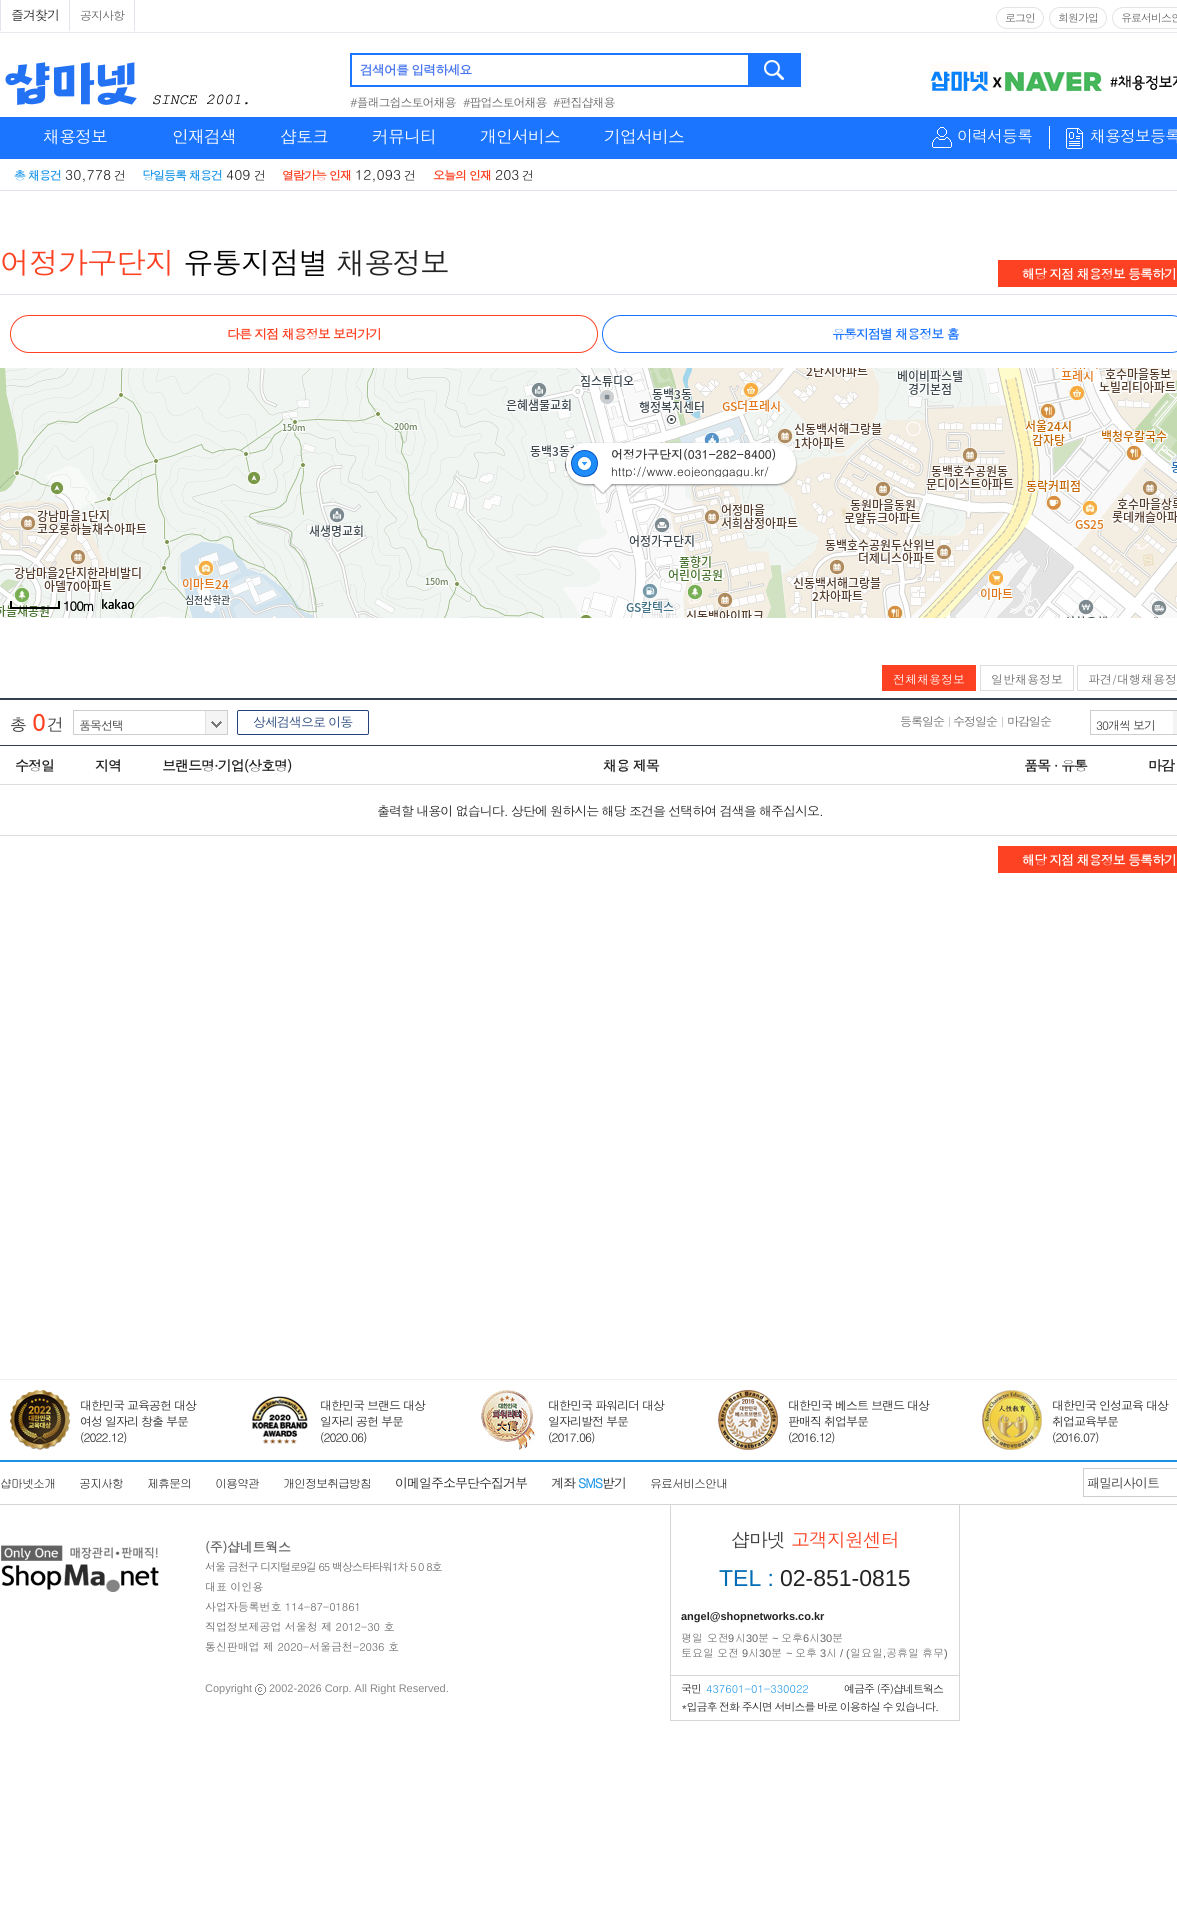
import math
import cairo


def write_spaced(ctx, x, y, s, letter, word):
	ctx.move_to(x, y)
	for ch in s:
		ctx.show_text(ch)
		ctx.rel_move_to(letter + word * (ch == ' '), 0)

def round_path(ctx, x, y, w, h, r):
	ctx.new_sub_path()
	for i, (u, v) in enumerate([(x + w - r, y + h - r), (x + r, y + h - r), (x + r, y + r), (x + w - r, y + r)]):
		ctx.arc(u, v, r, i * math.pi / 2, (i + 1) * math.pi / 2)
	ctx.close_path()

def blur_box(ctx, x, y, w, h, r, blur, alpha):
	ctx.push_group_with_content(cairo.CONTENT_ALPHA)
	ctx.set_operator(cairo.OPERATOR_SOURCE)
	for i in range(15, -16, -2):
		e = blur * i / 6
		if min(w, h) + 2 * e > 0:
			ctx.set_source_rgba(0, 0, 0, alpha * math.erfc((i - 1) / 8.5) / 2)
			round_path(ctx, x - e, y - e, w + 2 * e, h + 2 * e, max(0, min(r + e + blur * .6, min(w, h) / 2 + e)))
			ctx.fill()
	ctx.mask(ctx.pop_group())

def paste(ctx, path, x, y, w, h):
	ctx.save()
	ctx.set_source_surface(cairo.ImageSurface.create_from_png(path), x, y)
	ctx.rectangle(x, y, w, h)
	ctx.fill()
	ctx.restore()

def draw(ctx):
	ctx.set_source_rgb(1, 1, 1)
	ctx.paint()
	ctx.set_source_rgb(0.914, 0.918, 0.945)
	ctx.rectangle(0, 32, 1177, 1)
	ctx.fill()
	ctx.set_source_rgb(0.89, 0.898, 0.929)
	ctx.rectangle(134, 0, 1, 31)
	ctx.rectangle(0, 0, 1, 31)
	ctx.fill()
	ctx.select_font_face('Dotum')
	ctx.set_font_size(13)
	ctx.set_source_rgb(0.133, 0.133, 0.133)
	write_spaced(ctx, 11, 20, '즐겨찾기', -1, 0)
	ctx.set_source_rgb(0.89, 0.898, 0.929)
	ctx.rectangle(69, 0, 1, 31)
	ctx.fill()
	ctx.set_font_size(12)
	ctx.set_source_rgb(0.4, 0.4, 0.4)
	write_spaced(ctx, 80, 20, '공지사항', -1, 0)
	round_path(ctx, 996.5, 7.5, 47, 21, 10.5)
	ctx.set_source_rgb(0.894, 0.894, 0.894)
	ctx.set_line_width(1)
	ctx.stroke()
	ctx.set_font_size(11)
	ctx.set_source_rgb(0.4, 0.4, 0.4)
	write_spaced(ctx, 1005, 22, '로그인', -1, 0)
	round_path(ctx, 1049.5, 7.5, 57, 21, 10.5)
	ctx.set_source_rgb(0.894, 0.894, 0.894)
	ctx.stroke()
	ctx.set_source_rgb(0.4, 0.4, 0.4)
	write_spaced(ctx, 1058, 22, '회원가입', -1, 0)
	round_path(ctx, 1112.5, 7.5, 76, 21, 10.5)
	ctx.set_source_rgb(0.894, 0.894, 0.894)
	ctx.stroke()
	ctx.set_source_rgb(0.4, 0.4, 0.4)
	write_spaced(ctx, 1121, 22, '유료서비스안', -1, 0)
	paste(ctx, 'media/1.png', 5, 62, 243, 43)
	ctx.rectangle(351, 54, 398, 32)
	ctx.set_source_rgb(0.106, 0.459, 1)
	ctx.set_line_width(2)
	ctx.stroke()
	ctx.set_source_rgb(0.11, 0.459, 1)
	ctx.rectangle(750, 53, 51, 34)
	ctx.fill()
	paste(ctx, 'media/2.png', 764, 60, 20, 20)
	ctx.select_font_face('Dotum', cairo.FONT_SLANT_NORMAL, cairo.FONT_WEIGHT_BOLD)
	ctx.set_font_size(13)
	ctx.set_source_rgb(0.282, 0.463, 0.937)
	write_spaced(ctx, 360, 75, '검색어를 입력하세요', -1, 0)
	ctx.select_font_face('Dotum')
	ctx.set_font_size(12)
	ctx.set_source_rgb(0.4, 0.4, 0.4)
	for x, y, s in [
		(350, 107, '#플래그쉽스토어채용'),
		(463, 107, '#팝업스토어채용'),
		(553, 107, '#편집샵채용'),
	]:
		write_spaced(ctx, x, y, s, -1, 0)
	paste(ctx, 'media/3.png', 930, 63, 247, 30)
	ctx.set_source_rgb(0.11, 0.459, 1)
	ctx.rectangle(0, 117, 1177, 42)
	ctx.fill()
	ctx.set_font_size(17)
	ctx.set_source_rgb(1, 1, 1)
	for x, y, s in [
		(43, 143, '채용정보'),
		(172, 143, '인재검색'),
		(280, 143, '샵토크'),
		(372, 143, '커뮤니티'),
		(480, 143, '개인서비스'),
		(604, 143, '기업서비스'),
	]:
		write_spaced(ctx, x, y, s, -1, 0)
	paste(ctx, 'media/4.png', 932, 127, 20, 21)
	ctx.set_font_size(16)
	write_spaced(ctx, 957, 142, '이력서등록', -1, 0)
	ctx.rectangle(1049, 126, 1, 23)
	ctx.fill()
	paste(ctx, 'media/5.png', 1066, 128, 17, 21)
	write_spaced(ctx, 1090, 142, '채용정보등록', -1, 0)
	ctx.set_source_rgb(0.89, 0.898, 0.929)
	ctx.rectangle(0, 190, 1177, 1)
	ctx.fill()
	ctx.select_font_face('Dotum', cairo.FONT_SLANT_NORMAL, cairo.FONT_WEIGHT_BOLD)
	ctx.set_font_size(12)
	ctx.set_source_rgb(0.137, 0.6, 0.91)
	write_spaced(ctx, 14, 180, '총 채용건', -1, 0)
	ctx.select_font_face('Dotum')
	ctx.set_font_size(14)
	ctx.set_source_rgb(0.133, 0.133, 0.133)
	ctx.move_to(65, 180)
	ctx.show_text('30,778')
	ctx.set_font_size(12)
	write_spaced(ctx, 114, 180, '건', -1, 0)
	ctx.select_font_face('Dotum', cairo.FONT_SLANT_NORMAL, cairo.FONT_WEIGHT_BOLD)
	ctx.set_source_rgb(0.137, 0.6, 0.91)
	write_spaced(ctx, 142, 180, '당일등록 채용건', -1, 0)
	ctx.select_font_face('Dotum')
	ctx.set_font_size(14)
	ctx.set_source_rgb(0.133, 0.133, 0.133)
	ctx.move_to(226, 180)
	ctx.show_text('409')
	ctx.set_font_size(12)
	write_spaced(ctx, 254, 180, '건', -1, 0)
	ctx.select_font_face('Dotum', cairo.FONT_SLANT_NORMAL, cairo.FONT_WEIGHT_BOLD)
	ctx.set_source_rgb(0.992, 0.259, 0.137)
	write_spaced(ctx, 282, 180, '열람가능 인재', -1, 0)
	ctx.select_font_face('Dotum')
	ctx.set_font_size(14)
	ctx.set_source_rgb(0.133, 0.133, 0.133)
	ctx.move_to(355, 180)
	ctx.show_text('12,093')
	ctx.set_font_size(12)
	write_spaced(ctx, 404, 180, '건', -1, 0)
	ctx.select_font_face('Dotum', cairo.FONT_SLANT_NORMAL, cairo.FONT_WEIGHT_BOLD)
	ctx.set_source_rgb(0.992, 0.259, 0.137)
	write_spaced(ctx, 433, 180, '오늘의 인재', -1, 0)
	ctx.select_font_face('Dotum')
	ctx.set_font_size(14)
	ctx.set_source_rgb(0.133, 0.133, 0.133)
	ctx.move_to(495, 180)
	ctx.show_text('203')
	ctx.set_font_size(12)
	write_spaced(ctx, 522, 180, '건', -1, 0)
	ctx.set_source_rgb(0.89, 0.898, 0.929)
	ctx.rectangle(0, 294, 1177, 1)
	ctx.fill()
	ctx.set_font_size(30)
	ctx.set_source_rgb(0.992, 0.259, 0.137)
	write_spaced(ctx, 0, 274, '어정가구단지', -1, 0)
	ctx.set_source_rgb(0, 0, 0)
	write_spaced(ctx, 183, 274, '유통지점별', -1, 0)
	ctx.set_source_rgb(0.133, 0.133, 0.133)
	write_spaced(ctx, 336, 274, '채용정보', -2, 0)
	ctx.set_source_rgb(0.992, 0.259, 0.137)
	ctx.rectangle(998, 260, 179, 27)
	ctx.fill()
	ctx.select_font_face('Dotum', cairo.FONT_SLANT_NORMAL, cairo.FONT_WEIGHT_BOLD)
	ctx.set_font_size(13)
	ctx.set_source_rgb(1, 1, 1)
	write_spaced(ctx, 1022, 279, '해당 지점 채용정보 등록하기', -1, 0)
	round_path(ctx, 10.5, 315.5, 587, 37, 18.5)
	ctx.set_source_rgb(0.992, 0.259, 0.137)
	ctx.set_line_width(1)
	ctx.stroke()
	write_spaced(ctx, 227, 339, '다른 지점 채용정보 보러가기', -1, 0)
	round_path(ctx, 602.5, 315.5, 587, 37, 18.5)
	ctx.set_source_rgb(0.11, 0.459, 1)
	ctx.stroke()
	write_spaced(ctx, 832, 339, '유통지점별 채용정보 홈', -1, 0)
	paste(ctx, 'media/6.png', 0, 368, 108, 32)
	paste(ctx, 'media/7.png', 108, 368, 256, 32)
	paste(ctx, 'media/8.png', 364, 368, 256, 32)
	paste(ctx, 'media/9.png', 620, 368, 256, 32)
	paste(ctx, 'media/10.png', 876, 368, 256, 32)
	paste(ctx, 'media/11.png', 1132, 368, 45, 32)
	paste(ctx, 'media/12.png', 0, 400, 108, 218)
	paste(ctx, 'media/13.png', 108, 400, 256, 218)
	paste(ctx, 'media/14.png', 364, 400, 256, 218)
	paste(ctx, 'media/15.png', 620, 400, 256, 218)
	paste(ctx, 'media/16.png', 876, 400, 256, 218)
	paste(ctx, 'media/17.png', 1132, 400, 45, 218)
	ctx.set_source_rgb(0.533, 0.533, 0.533)
	blur_box(ctx, 566, 444, 230, 41, 20, 1, 1)
	ctx.set_source_rgb(1, 1, 1)
	round_path(ctx, 566, 443, 230, 41, 20)
	ctx.fill()
	paste(ctx, 'media/18.png', 571, 450, 27, 27)
	ctx.set_font_size(12)
	ctx.set_source_rgb(0.22, 0.22, 0.22)
	ctx.move_to(611, 459)
	ctx.show_text('어정가구단지(031-282-8400)')
	ctx.save()
	ctx.rectangle(611, 443, 185, 34)
	ctx.clip()
	ctx.select_font_face('Dotum')
	ctx.set_source_rgb(0.133, 0.133, 0.133)
	ctx.move_to(611, 476)
	ctx.show_text('http://www.eojeonggagu.kr/')
	ctx.restore()
	paste(ctx, 'media/19.png', 592, 483, 21, 12)
	ctx.set_source_rgb(0, 0, 0)
	ctx.rectangle(58, 601, 2, 8)
	ctx.rectangle(10, 607, 50, 2)
	ctx.rectangle(10, 601, 2, 8)
	ctx.fill()
	ctx.set_font_size(13)
	write_spaced(ctx, 63, 611, '100m', -1, 0)
	paste(ctx, 'media/20.png', 102, 599, 32, 10)
	ctx.set_source_rgb(0.2, 0.243, 0.322)
	ctx.rectangle(0, 698, 1177, 2)
	ctx.fill()
	ctx.set_source_rgb(0.992, 0.259, 0.137)
	ctx.rectangle(882, 665, 94, 26)
	ctx.fill()
	ctx.select_font_face('Dotum')
	ctx.set_font_size(12)
	ctx.set_source_rgb(1, 1, 1)
	ctx.move_to(893, 684)
	ctx.show_text('전체채용정보')
	ctx.rectangle(980.5, 665.5, 93, 25)
	ctx.set_source_rgb(0.867, 0.867, 0.867)
	ctx.stroke()
	ctx.set_source_rgb(0.4, 0.4, 0.4)
	ctx.move_to(991, 684)
	ctx.show_text('일반채용정보')
	ctx.rectangle(1077.5, 665.5, 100, 25)
	ctx.set_source_rgb(0.867, 0.867, 0.867)
	ctx.stroke()
	ctx.set_source_rgb(0.4, 0.4, 0.4)
	ctx.move_to(1088, 684)
	ctx.show_text('파견/대행채용정')
	ctx.set_font_size(17)
	ctx.set_source_rgb(0.22, 0.22, 0.22)
	ctx.move_to(10, 731)
	ctx.show_text('총')
	ctx.select_font_face('Dotum', cairo.FONT_SLANT_NORMAL, cairo.FONT_WEIGHT_BOLD)
	ctx.set_font_size(23)
	ctx.set_source_rgb(0.992, 0.259, 0.137)
	ctx.move_to(32, 731)
	ctx.show_text('0')
	ctx.select_font_face('Dotum')
	ctx.set_font_size(17)
	ctx.set_source_rgb(0.22, 0.22, 0.22)
	ctx.move_to(47, 731)
	ctx.show_text('건')
	paste(ctx, 'media/21.png', 205, 711, 22, 23)
	ctx.rectangle(73.5, 710.5, 154, 24)
	ctx.set_source_rgb(0.808, 0.808, 0.808)
	ctx.stroke()
	ctx.set_font_size(12)
	ctx.set_source_rgb(0.22, 0.22, 0.22)
	write_spaced(ctx, 79, 730, '품목선택', -1, 0)
	round_path(ctx, 237.5, 710.5, 131, 24, 1.5)
	ctx.set_source_rgb(0.137, 0.263, 0.475)
	ctx.stroke()
	ctx.set_font_size(13)
	write_spaced(ctx, 253, 727, '상세검색으로 이동', -1, 0)
	ctx.set_font_size(12)
	ctx.set_source_rgb(0.4, 0.4, 0.4)
	write_spaced(ctx, 900, 726, '등록일순', -1, 0)
	ctx.set_source_rgb(0.8, 0.8, 0.8)
	ctx.rectangle(949, 717, 1, 10)
	ctx.fill()
	ctx.set_source_rgb(0.4, 0.4, 0.4)
	write_spaced(ctx, 953, 726, '수정일순', -1, 0)
	ctx.set_source_rgb(0.8, 0.8, 0.8)
	ctx.rectangle(1002, 717, 1, 10)
	ctx.fill()
	ctx.set_source_rgb(0.4, 0.4, 0.4)
	write_spaced(ctx, 1007, 726, '마감일순', -1, 0)
	ctx.set_source_rgb(0.957, 0.957, 0.957)
	ctx.rectangle(1173, 710, 4, 25)
	ctx.fill()
	ctx.rectangle(1090.5, 710.5, 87, 24)
	ctx.set_source_rgb(0.808, 0.808, 0.808)
	ctx.stroke()
	ctx.set_source_rgb(0.22, 0.22, 0.22)
	write_spaced(ctx, 1096, 730, '30개씩 보기', -1, 0)
	ctx.set_source_rgb(0.2, 0.243, 0.322)
	ctx.rectangle(0, 745, 1177, 1)
	ctx.fill()
	ctx.set_source_rgb(0.867, 0.867, 0.867)
	ctx.rectangle(0, 835, 1177, 1)
	ctx.fill()
	ctx.select_font_face('Dotum', cairo.FONT_SLANT_NORMAL, cairo.FONT_WEIGHT_BOLD)
	ctx.set_font_size(14)
	ctx.set_source_rgb(0.133, 0.133, 0.133)
	for x, y, s in [
		(15, 771, '수정일'),
		(95, 771, '지역'),
		(162, 771, '브랜드명·기업(상호명)'),
		(603, 771, '채용 제목'),
		(1024, 771, '품목 · 유통'),
		(1148, 771, '마감'),
	]:
		write_spaced(ctx, x, y, s, -1, 0)
	ctx.set_source_rgb(0.867, 0.867, 0.867)
	ctx.rectangle(0, 784, 1177, 1)
	ctx.fill()
	ctx.select_font_face('Dotum')
	ctx.set_font_size(13)
	ctx.set_source_rgb(0.133, 0.133, 0.133)
	write_spaced(ctx, 377, 816, '출력할 내용이 없습니다. 상단에 원하시는 해당 조건을 선택하여 검색을 해주십시오.', -1, 0)
	ctx.set_source_rgb(0.992, 0.259, 0.137)
	ctx.rectangle(998, 846, 179, 27)
	ctx.fill()
	ctx.select_font_face('Dotum', cairo.FONT_SLANT_NORMAL, cairo.FONT_WEIGHT_BOLD)
	ctx.set_source_rgb(1, 1, 1)
	write_spaced(ctx, 1022, 865, '해당 지점 채용정보 등록하기', -1, 0)
	ctx.set_source_rgb(0.933, 0.933, 0.933)
	ctx.rectangle(0, 1379, 1177, 1)
	ctx.fill()
	paste(ctx, 'media/22.png', 10, 1390, 60, 60)
	ctx.select_font_face('Dotum')
	ctx.set_font_size(12)
	ctx.set_source_rgb(0.133, 0.133, 0.133)
	for x, y, s in [
		(80, 1410, '대한민국 교육공헌 대상'),
		(80, 1426, '여성 일자리 창출 부문'),
		(80, 1442, '(2022.12)'),
	]:
		write_spaced(ctx, x, y, s, -1, 0)
	paste(ctx, 'media/23.png', 252, 1396, 56, 48)
	for x, y, s in [
		(320, 1410, '대한민국 브랜드 대상'),
		(320, 1426, '일자리 공헌 부문'),
		(320, 1442, '(2020.06)'),
	]:
		write_spaced(ctx, x, y, s, -1, 0)
	paste(ctx, 'media/24.png', 479, 1390, 56, 60)
	for x, y, s in [
		(548, 1410, '대한민국 파워리더 대상'),
		(548, 1426, '일자리발전 부문'),
		(548, 1442, '(2017.06)'),
	]:
		write_spaced(ctx, x, y, s, -1, 0)
	paste(ctx, 'media/25.png', 718, 1390, 60, 60)
	for x, y, s in [
		(788, 1410, '대한민국 베스트 브랜드 대상'),
		(788, 1426, '판매직 취업부문'),
		(788, 1442, '(2016.12)'),
	]:
		write_spaced(ctx, x, y, s, -1, 0)
	paste(ctx, 'media/26.png', 982, 1390, 60, 60)
	for x, y, s in [
		(1052, 1410, '대한민국 인성교육 대상'),
		(1052, 1426, '취업교육부문'),
		(1052, 1442, '(2016.07)'),
	]:
		write_spaced(ctx, x, y, s, -1, 0)
	paste(ctx, 'media/27.png', 0, 1460, 1177, 45)
	ctx.select_font_face('Gulim')
	for x, y, s in [
		(0, 1488, '샵마넷소개'),
		(79, 1488, '공지사항'),
		(147, 1488, '제휴문의'),
		(215, 1488, '이용약관'),
		(283, 1488, '개인정보취급방침'),
	]:
		write_spaced(ctx, x, y, s, -1, 0)
	ctx.select_font_face('Dotum')
	ctx.set_font_size(13)
	write_spaced(ctx, 395, 1488, '이메일주소무단수집거부', -1, 0)
	write_spaced(ctx, 551, 1488, '계좌', -1, 0)
	ctx.select_font_face('Dotum', cairo.FONT_SLANT_NORMAL, cairo.FONT_WEIGHT_BOLD)
	ctx.set_source_rgb(0.137, 0.6, 0.91)
	write_spaced(ctx, 578, 1488, 'SMS', -1, 0)
	ctx.select_font_face('Dotum')
	ctx.set_source_rgb(0.133, 0.133, 0.133)
	write_spaced(ctx, 602, 1488, '받기', -1, 0)
	ctx.select_font_face('Gulim')
	ctx.set_font_size(12)
	write_spaced(ctx, 650, 1488, '유료서비스안내', -1, 0)
	ctx.rectangle(1083.5, 1468.5, 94, 28)
	ctx.set_source_rgb(0.808, 0.808, 0.808)
	ctx.stroke()
	ctx.select_font_face('Dotum')
	ctx.set_font_size(13)
	ctx.set_source_rgb(0.22, 0.22, 0.22)
	write_spaced(ctx, 1087, 1488, '패밀리사이트', -1, 0)
	paste(ctx, 'media/28.png', 1, 1545, 158, 47)
	ctx.select_font_face('Dotum', cairo.FONT_SLANT_NORMAL, cairo.FONT_WEIGHT_BOLD)
	ctx.set_source_rgb(0.4, 0.4, 0.4)
	write_spaced(ctx, 205, 1552, '(주)샵네트웍스', -0.25, 0)
	ctx.select_font_face('Dotum')
	ctx.set_font_size(11)
	write_spaced(ctx, 205, 1571, '서울 금천구 디지털로9길 65 백상스타타워1차 5 0 8호', -1, 0)
	for x, y, s in [
		(205, 1591, '대표 이인용'),
		(205, 1611, '사업자등록번호 114-87-01861'),
		(205, 1631, '직업정보제공업 서울청 제 2012-30 호'),
		(205, 1651, '통신판매업 제 2020-서울금천-2036 호'),
	]:
		write_spaced(ctx, x, y, s, -0.1, 0)
	ctx.select_font_face('Liberation Sans')
	ctx.set_source_rgb(0.533, 0.533, 0.533)
	ctx.move_to(205, 1692)
	ctx.show_text('Copyright')
	paste(ctx, 'media/29.png', 255, 1684, 11, 11)
	ctx.move_to(269, 1692)
	ctx.show_text('2002-2026 Corp. All Right Reserved.')
	ctx.set_source_rgb(0.839, 0.839, 0.839)
	ctx.rectangle(959, 1505, 1, 216)
	ctx.rectangle(670, 1675, 290, 1)
	ctx.rectangle(670, 1505, 1, 171)
	ctx.fill()
	ctx.select_font_face('Dotum')
	ctx.set_font_size(19)
	ctx.set_source_rgb(0.22, 0.22, 0.22)
	write_spaced(ctx, 731, 1547, '샵마넷', -1, 0)
	ctx.set_source_rgb(0.992, 0.259, 0.137)
	write_spaced(ctx, 791, 1547, '고객지원센터', -1, 0)
	ctx.select_font_face('Liberation Sans')
	ctx.set_font_size(23)
	ctx.set_source_rgb(0, 0.427, 0.714)
	ctx.move_to(719, 1586)
	ctx.show_text('TEL :')
	ctx.set_source_rgb(0.133, 0.133, 0.133)
	ctx.move_to(780, 1586)
	ctx.show_text('02-851-0815')
	ctx.select_font_face('Liberation Sans', cairo.FONT_SLANT_NORMAL, cairo.FONT_WEIGHT_BOLD)
	ctx.set_font_size(11)
	ctx.move_to(681, 1620)
	ctx.show_text('angel@shopnetworks.co.kr')
	ctx.select_font_face('Gulim')
	ctx.set_source_rgb(0.4, 0.4, 0.4)
	ctx.move_to(681, 1642)
	ctx.show_text('평일 오전')
	ctx.select_font_face('Liberation Sans')
	ctx.move_to(728, 1642)
	ctx.show_text('9')
	ctx.select_font_face('Gulim')
	ctx.move_to(735, 1642)
	ctx.show_text('시')
	ctx.select_font_face('Liberation Sans')
	ctx.move_to(746, 1642)
	ctx.show_text('30')
	ctx.select_font_face('Gulim')
	ctx.move_to(758, 1642)
	ctx.show_text('분')
	ctx.select_font_face('Liberation Sans')
	ctx.move_to(772, 1642)
	ctx.show_text('~')
	ctx.select_font_face('Gulim')
	ctx.move_to(781, 1642)
	ctx.show_text('오후')
	ctx.select_font_face('Liberation Sans')
	ctx.move_to(803, 1642)
	ctx.show_text('6')
	ctx.select_font_face('Gulim')
	ctx.move_to(809, 1642)
	ctx.show_text('시')
	ctx.select_font_face('Liberation Sans')
	ctx.move_to(820, 1642)
	ctx.show_text('30')
	ctx.select_font_face('Gulim')
	for x, y, s in [
		(832, 1642, '분'),
		(681, 1657, '토요일'),
		(717, 1657, '오전'),
	]:
		ctx.move_to(x, y)
		ctx.show_text(s)
	ctx.select_font_face('Liberation Sans')
	ctx.move_to(742, 1657)
	ctx.show_text('9')
	ctx.select_font_face('Gulim')
	ctx.move_to(748, 1657)
	ctx.show_text('시')
	ctx.select_font_face('Liberation Sans')
	ctx.move_to(759, 1657)
	ctx.show_text('30')
	ctx.select_font_face('Gulim')
	ctx.move_to(771, 1657)
	ctx.show_text('분')
	ctx.select_font_face('Liberation Sans')
	ctx.move_to(786, 1657)
	ctx.show_text('~')
	ctx.select_font_face('Gulim')
	ctx.move_to(795, 1657)
	ctx.show_text('오후')
	ctx.select_font_face('Liberation Sans')
	ctx.move_to(820, 1657)
	ctx.show_text('3')
	ctx.select_font_face('Gulim')
	ctx.move_to(826, 1657)
	ctx.show_text('시')
	ctx.select_font_face('Liberation Sans')
	ctx.move_to(840, 1657)
	ctx.show_text('/ (')
	ctx.select_font_face('Gulim')
	for x, y, s in [
		(850, 1657, '일요일'),
		(886, 1657, '공휴일'),
		(922, 1657, '휴무'),
	]:
		ctx.move_to(x, y)
		ctx.show_text(s)
	ctx.select_font_face('Liberation Sans')
	ctx.move_to(944, 1657)
	ctx.show_text(')')
	ctx.move_to(883, 1657)
	ctx.show_text(',')
	ctx.set_source_rgb(0.839, 0.839, 0.839)
	ctx.rectangle(670, 1720, 290, 1)
	ctx.fill()
	ctx.rectangle(670, 1676, 1, 45)
	ctx.fill()
	ctx.select_font_face('Dotum')
	ctx.set_source_rgb(0.133, 0.133, 0.133)
	write_spaced(ctx, 681, 1693, '국민', -1, 0)
	ctx.set_source_rgb(0.137, 0.6, 0.91)
	ctx.move_to(706, 1693)
	ctx.show_text('437601-01-330022')
	ctx.set_source_rgb(0.133, 0.133, 0.133)
	write_spaced(ctx, 844, 1693, '예금주 (주)샵네트웍스', -1, 0)
	write_spaced(ctx, 681, 1711, '*입금후 전화 주시면 서비스를 바로 이용하실 수 있습니다.', -1, 0)


surface = cairo.ImageSurface(cairo.FORMAT_RGB24, 1177, 1921)
ctx = cairo.Context(surface)
options = cairo.FontOptions()
options.set_hint_metrics(cairo.HINT_METRICS_OFF)
options.set_hint_style(cairo.HINT_STYLE_NONE)
ctx.set_font_options(options)
ctx.set_miter_limit(4)
draw(ctx)
surface.write_to_png('image.png')
